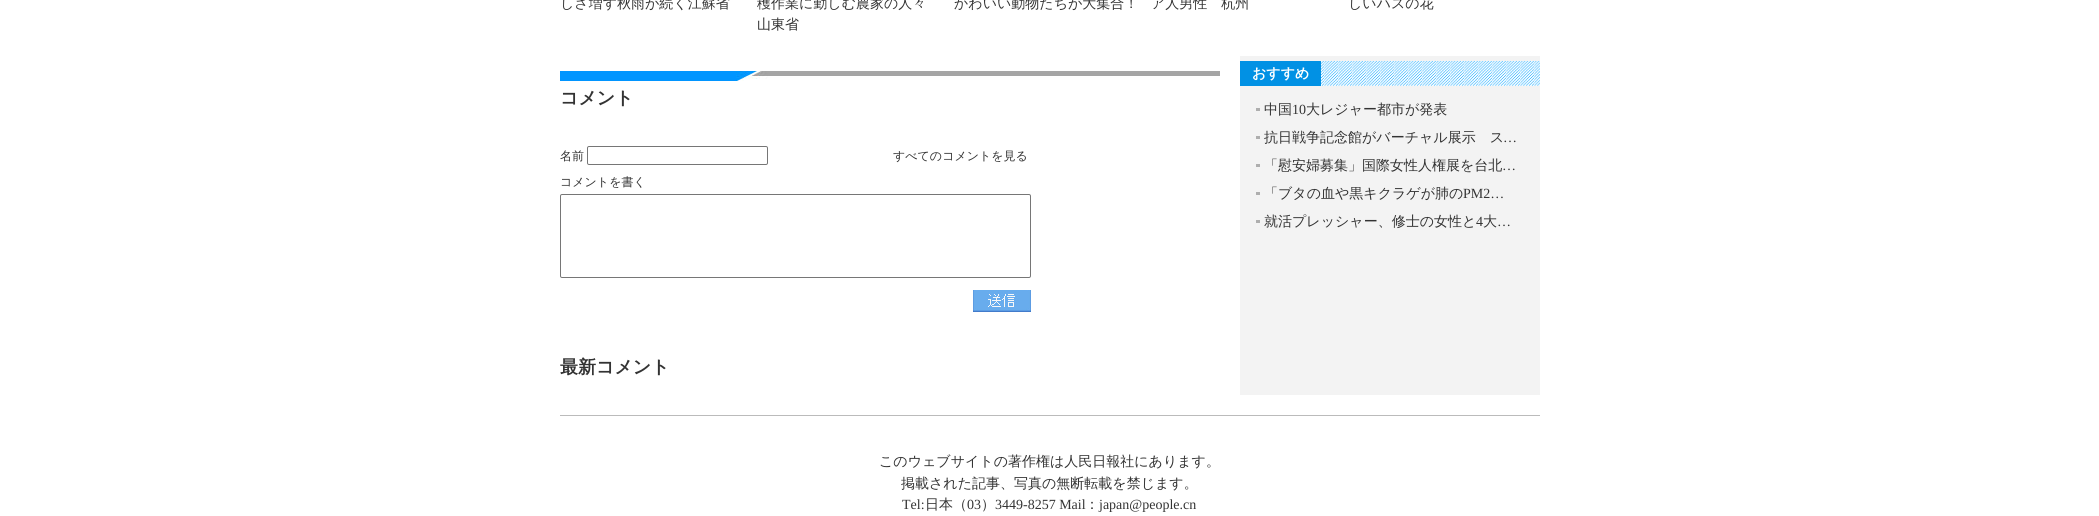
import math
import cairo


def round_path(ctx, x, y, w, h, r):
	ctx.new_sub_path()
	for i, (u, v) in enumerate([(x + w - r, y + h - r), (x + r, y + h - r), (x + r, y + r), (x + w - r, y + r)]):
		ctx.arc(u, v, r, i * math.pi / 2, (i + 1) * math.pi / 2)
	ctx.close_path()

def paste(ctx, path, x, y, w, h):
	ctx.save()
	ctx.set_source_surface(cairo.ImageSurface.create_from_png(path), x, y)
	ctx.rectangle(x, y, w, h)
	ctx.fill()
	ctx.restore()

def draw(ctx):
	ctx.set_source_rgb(1, 1, 1)
	ctx.paint()
	ctx.select_font_face('WenQuanYi Zen Hei Medium')
	ctx.set_font_size(14)
	ctx.set_source_rgb(0.2, 0.2, 0.2)
	for x, y, s in [
		(560, 8, 'しさ増す秋雨が続く江蘇省'),
		(757, 8, '穫作業に勤しむ農家の人々'),
		(757, 29, '山東省'),
		(954, 8, 'かわいい動物たちが大集合！'),
		(1151, 8, 'ア人男性　杭州'),
		(1348, 8, 'しいハスの花'),
	]:
		ctx.move_to(x, y)
		ctx.show_text(s)
	ctx.set_source_rgb(0.953, 0.953, 0.953)
	ctx.rectangle(1240, 56, 300, 339)
	ctx.fill()
	paste(ctx, 'media/1.png', 560, 71, 660, 10)
	ctx.select_font_face('WenQuanYi Zen Hei', cairo.FONT_SLANT_NORMAL, cairo.FONT_WEIGHT_BOLD)
	ctx.set_font_size(18)
	ctx.set_source_rgb(0.2, 0.2, 0.2)
	ctx.move_to(560, 104)
	ctx.show_text('コメント')
	ctx.select_font_face('WenQuanYi Zen Hei Medium')
	ctx.set_font_size(12)
	ctx.move_to(560, 160)
	ctx.show_text('名前')
	round_path(ctx, 587.5, 146.5, 180, 18, 1.5)
	ctx.set_source_rgb(0.463, 0.463, 0.463)
	ctx.set_line_width(1)
	ctx.stroke()
	ctx.set_source_rgb(0.2, 0.2, 0.2)
	ctx.move_to(893, 160)
	ctx.show_text('すべてのコメントを見る')
	ctx.move_to(560, 186)
	ctx.show_text('コメントを書く')
	round_path(ctx, 560.5, 194.5, 470, 83, 1.5)
	ctx.set_source_rgb(0.463, 0.463, 0.463)
	ctx.stroke()
	paste(ctx, 'media/2.png', 973, 290, 58, 22)
	ctx.select_font_face('WenQuanYi Zen Hei', cairo.FONT_SLANT_NORMAL, cairo.FONT_WEIGHT_BOLD)
	ctx.set_font_size(18)
	ctx.set_source_rgb(0.2, 0.2, 0.2)
	ctx.move_to(560, 373)
	ctx.show_text('最新コメント')
	paste(ctx, 'media/3.png', 1321, 61, 219, 25)
	ctx.set_source_rgb(0.004, 0.569, 0.894)
	ctx.rectangle(1240, 61, 81, 25)
	ctx.fill()
	ctx.set_font_size(14)
	ctx.set_source_rgb(1, 1, 1)
	ctx.move_to(1252, 78)
	ctx.show_text('おすすめ')
	ctx.set_source_rgb(0.682, 0.682, 0.682)
	ctx.rectangle(1256, 108, 4, 3)
	ctx.fill()
	ctx.select_font_face('WenQuanYi Zen Hei Medium')
	ctx.set_source_rgb(0.2, 0.2, 0.2)
	ctx.move_to(1264, 114)
	ctx.show_text('中国')
	ctx.select_font_face('Liberation Serif')
	ctx.move_to(1292, 114)
	ctx.show_text('10')
	ctx.select_font_face('WenQuanYi Zen Hei Medium')
	ctx.move_to(1306, 114)
	ctx.show_text('大レジャー都市が発表')
	ctx.set_source_rgb(0.682, 0.682, 0.682)
	ctx.rectangle(1256, 136, 4, 3)
	ctx.fill()
	ctx.set_source_rgb(0.2, 0.2, 0.2)
	ctx.move_to(1264, 142)
	ctx.show_text('抗日戦争記念館がバーチャル展示　ス')
	ctx.select_font_face('Liberation Serif')
	ctx.move_to(1503, 142)
	ctx.show_text('…')
	ctx.set_source_rgb(0.682, 0.682, 0.682)
	ctx.rectangle(1256, 164, 4, 3)
	ctx.fill()
	ctx.select_font_face('WenQuanYi Zen Hei Medium')
	ctx.set_source_rgb(0.2, 0.2, 0.2)
	ctx.move_to(1264, 170)
	ctx.show_text('「慰安婦募集」国際女性人権展を台北')
	ctx.select_font_face('Liberation Serif')
	ctx.move_to(1502, 170)
	ctx.show_text('…')
	ctx.set_source_rgb(0.682, 0.682, 0.682)
	ctx.rectangle(1256, 192, 4, 3)
	ctx.fill()
	ctx.select_font_face('WenQuanYi Zen Hei Medium')
	ctx.set_source_rgb(0.2, 0.2, 0.2)
	ctx.move_to(1264, 198)
	ctx.show_text('「ブタの血や黒キクラゲが肺の')
	ctx.select_font_face('Liberation Serif')
	ctx.move_to(1463, 198)
	ctx.show_text('PM2…')
	ctx.set_source_rgb(0.682, 0.682, 0.682)
	ctx.rectangle(1256, 220, 4, 3)
	ctx.fill()
	ctx.select_font_face('WenQuanYi Zen Hei Medium')
	ctx.set_source_rgb(0.2, 0.2, 0.2)
	ctx.move_to(1264, 226)
	ctx.show_text('就活プレッシャー、修士の女性と')
	ctx.select_font_face('Liberation Serif')
	ctx.move_to(1476, 226)
	ctx.show_text('4')
	ctx.select_font_face('WenQuanYi Zen Hei Medium')
	ctx.move_to(1483, 226)
	ctx.show_text('大')
	ctx.select_font_face('Liberation Serif')
	ctx.move_to(1497, 226)
	ctx.show_text('…')
	ctx.set_source_rgb(0.733, 0.733, 0.733)
	ctx.rectangle(560, 415, 980, 1)
	ctx.fill()
	ctx.select_font_face('WenQuanYi Zen Hei Medium')
	ctx.set_source_rgb(0.2, 0.2, 0.2)
	ctx.move_to(879, 466)
	ctx.show_text('このウェブサイトの著作権は人民日報社にあります。')
	ctx.move_to(901, 488)
	ctx.show_text('掲載された記事、写真の無断転載を禁じます。')
	ctx.select_font_face('Liberation Serif')
	ctx.move_to(902, 509)
	ctx.show_text('Tel:')
	ctx.select_font_face('WenQuanYi Zen Hei Medium')
	ctx.move_to(925, 509)
	ctx.show_text('日本（')
	ctx.select_font_face('Liberation Serif')
	ctx.move_to(967, 509)
	ctx.show_text('03')
	ctx.select_font_face('WenQuanYi Zen Hei Medium')
	ctx.move_to(981, 509)
	ctx.show_text('）')
	ctx.select_font_face('Liberation Serif')
	ctx.move_to(995, 509)
	ctx.show_text('3449-8257 Mail')
	ctx.select_font_face('WenQuanYi Zen Hei Medium')
	ctx.move_to(1085, 509)
	ctx.show_text('：')
	ctx.select_font_face('Liberation Serif')
	ctx.move_to(1099, 509)
	ctx.show_text('japan@people.cn')


surface = cairo.ImageSurface(cairo.FORMAT_RGB24, 2099, 516)
ctx = cairo.Context(surface)
options = cairo.FontOptions()
options.set_hint_metrics(cairo.HINT_METRICS_OFF)
options.set_hint_style(cairo.HINT_STYLE_NONE)
ctx.set_font_options(options)
ctx.set_miter_limit(4)
draw(ctx)
surface.write_to_png('image.png')
